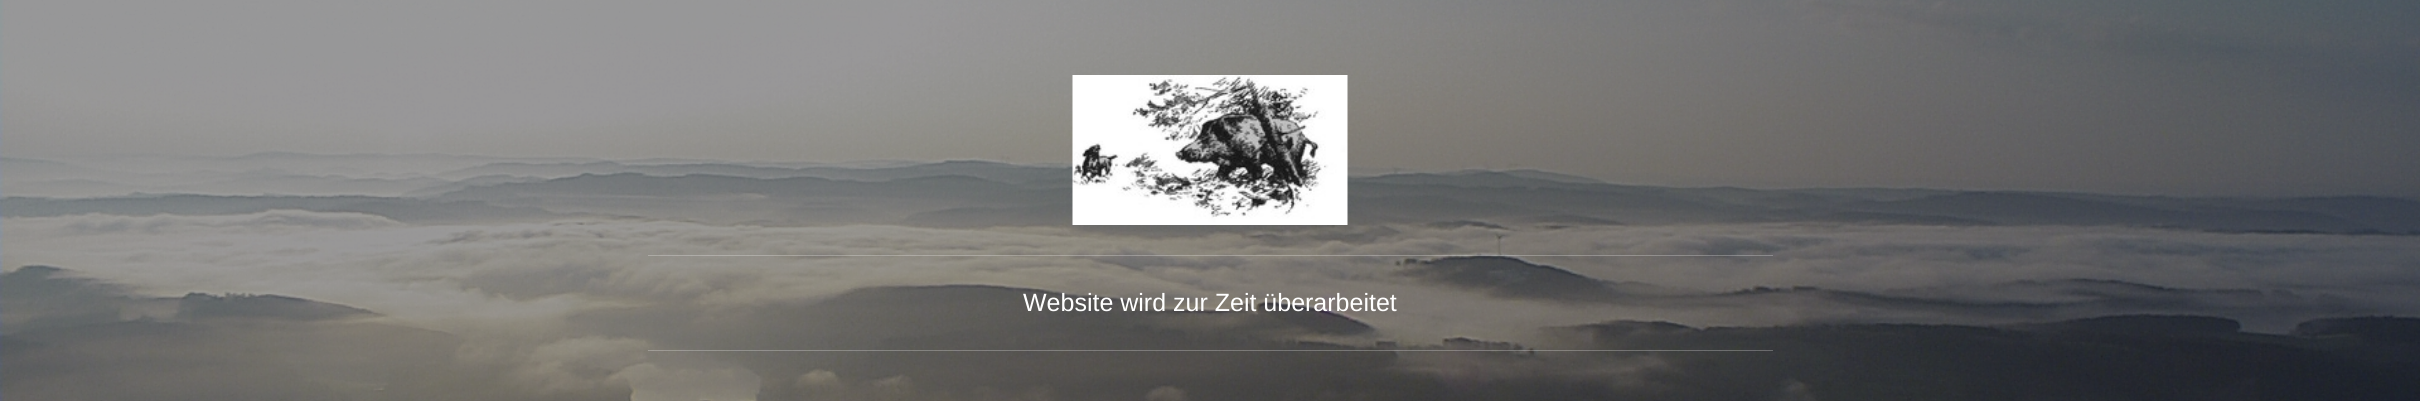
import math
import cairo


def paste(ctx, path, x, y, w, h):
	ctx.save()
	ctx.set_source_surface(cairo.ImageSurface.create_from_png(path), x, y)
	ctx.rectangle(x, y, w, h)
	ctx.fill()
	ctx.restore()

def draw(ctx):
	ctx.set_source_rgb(1, 1, 1)
	ctx.paint()
	paste(ctx, 'media/1.png', 0, 0, 2420, 401)
	paste(ctx, 'media/2.png', 1072, 75, 276, 150)
	ctx.set_source_rgba(1, 1, 1, 0.25)
	ctx.rectangle(648, 255, 1125, 1)
	ctx.fill()
	ctx.rectangle(648, 350, 1125, 1)
	ctx.fill()
	ctx.select_font_face('Liberation Sans')
	ctx.set_font_size(25)
	ctx.set_source_rgb(1, 1, 1)
	ctx.move_to(1023, 311)
	ctx.show_text('Website wird zur Zeit überarbeitet')


surface = cairo.ImageSurface(cairo.FORMAT_RGB24, 2420, 401)
ctx = cairo.Context(surface)
options = cairo.FontOptions()
options.set_hint_metrics(cairo.HINT_METRICS_OFF)
options.set_hint_style(cairo.HINT_STYLE_NONE)
ctx.set_font_options(options)
ctx.set_miter_limit(4)
draw(ctx)
surface.write_to_png('image.png')
